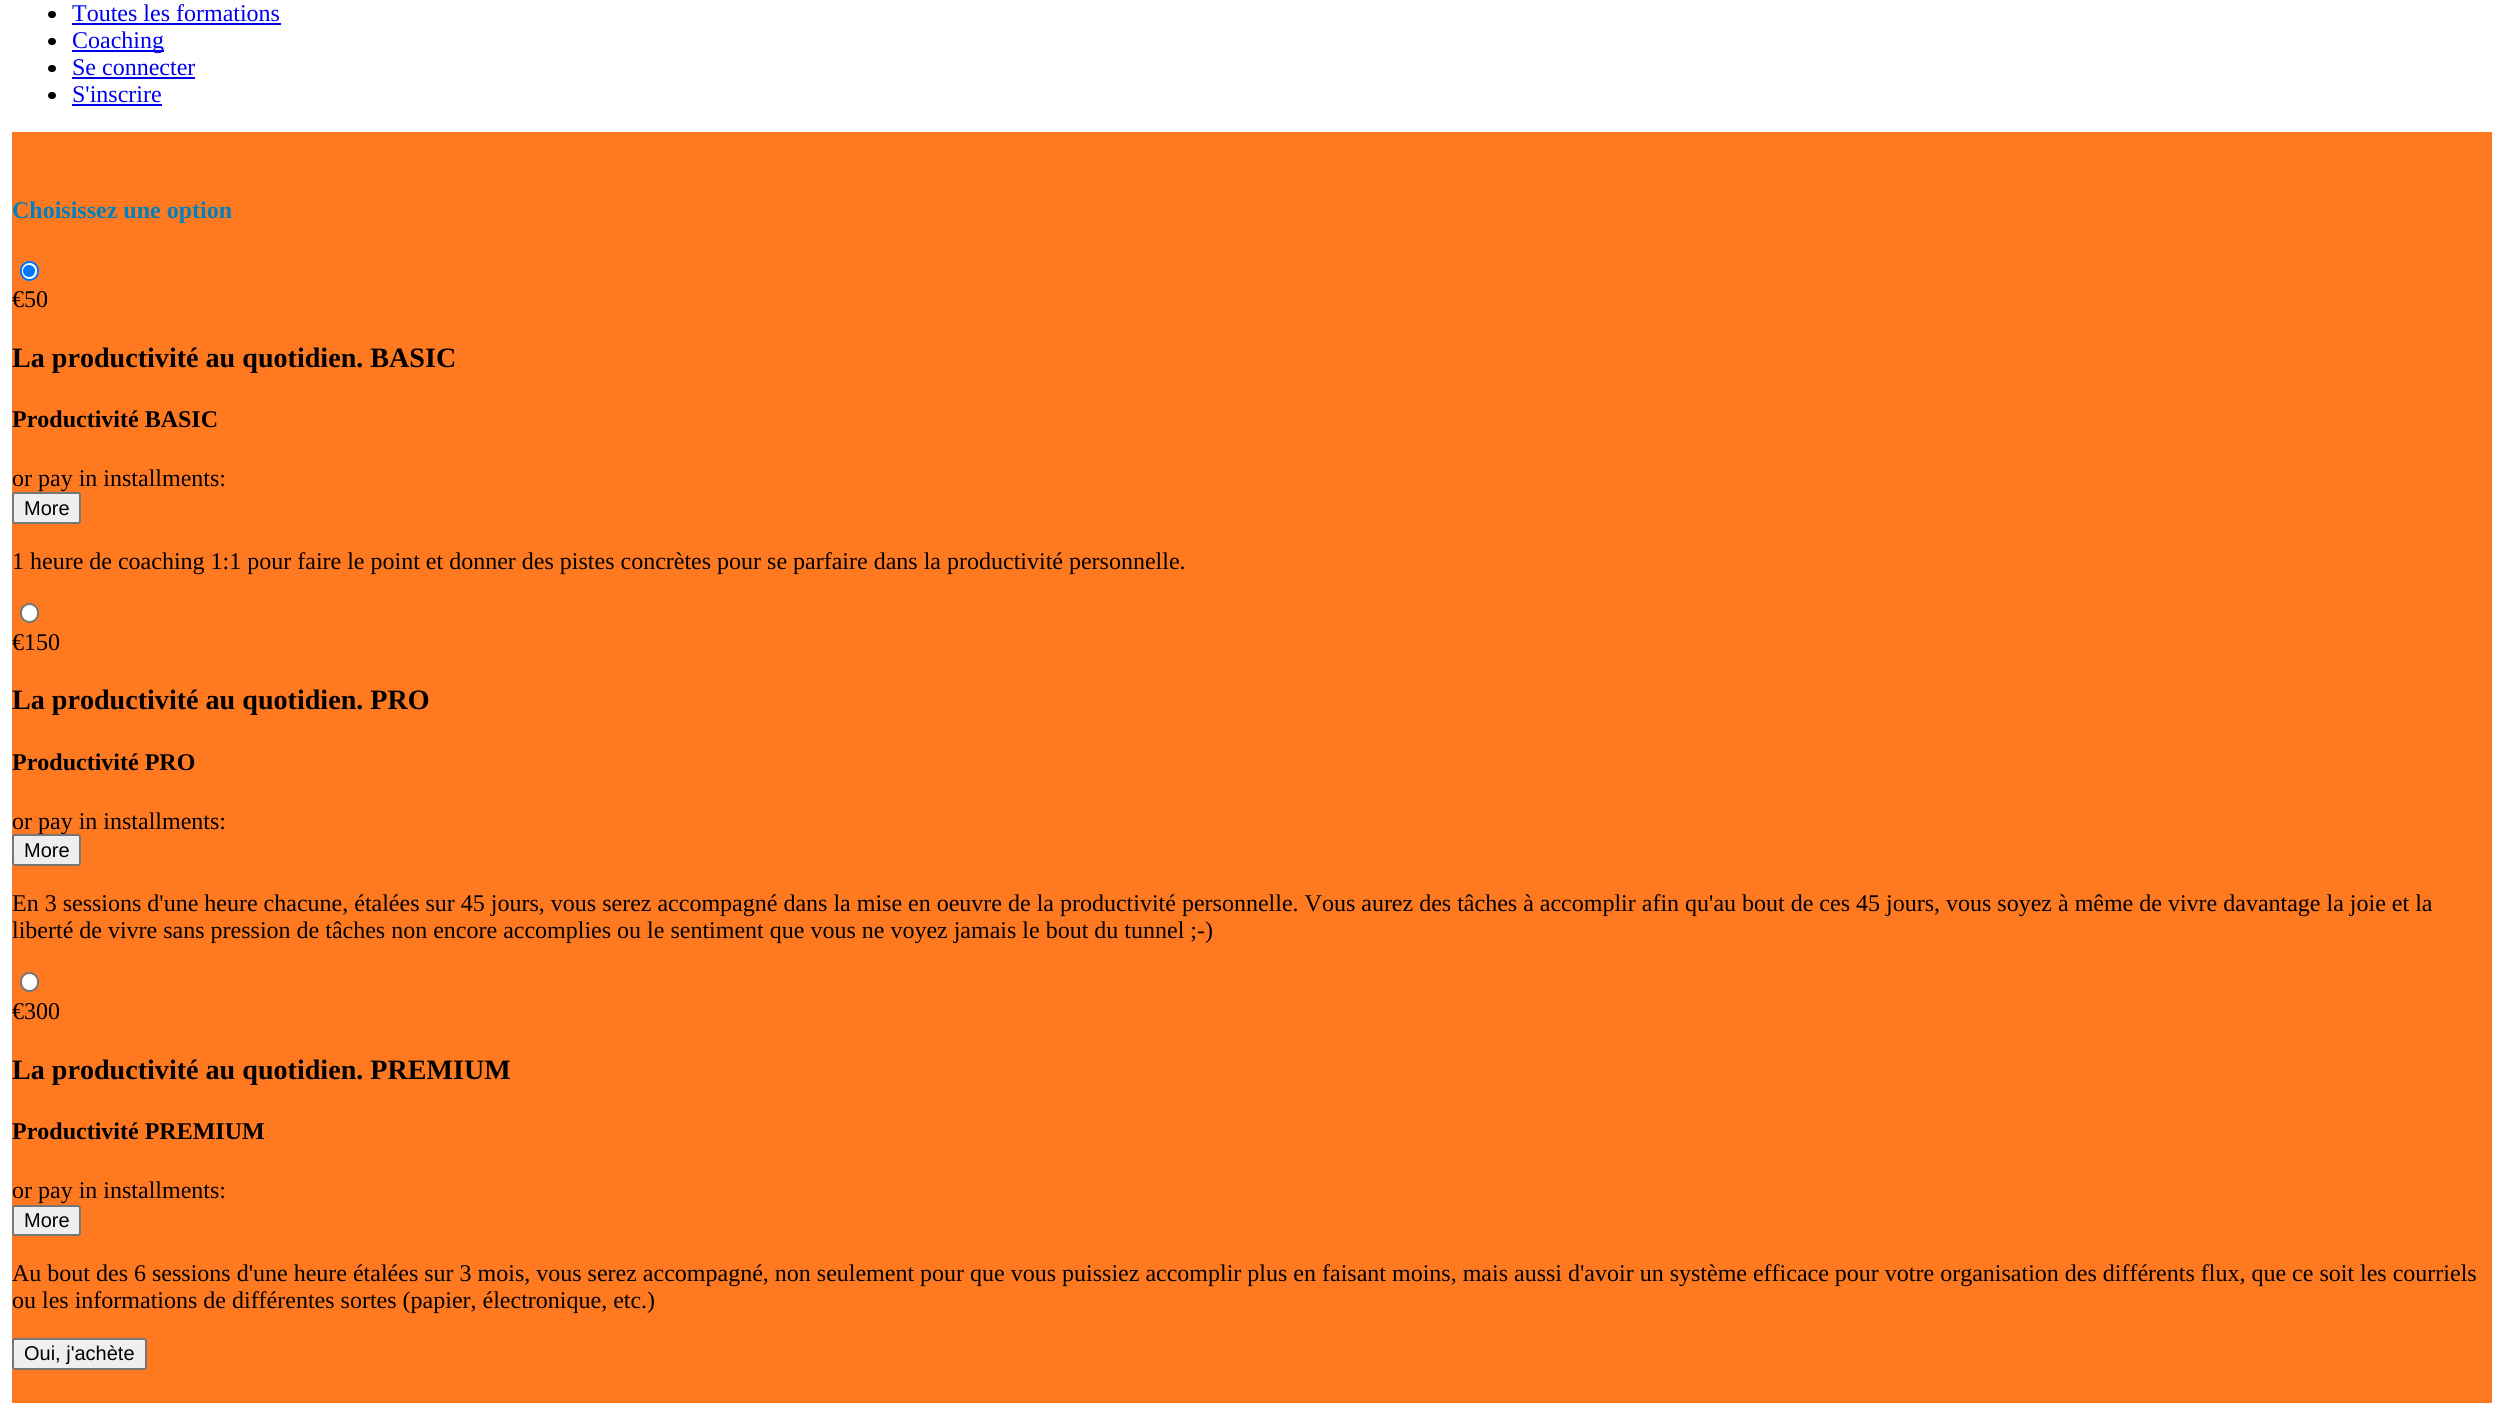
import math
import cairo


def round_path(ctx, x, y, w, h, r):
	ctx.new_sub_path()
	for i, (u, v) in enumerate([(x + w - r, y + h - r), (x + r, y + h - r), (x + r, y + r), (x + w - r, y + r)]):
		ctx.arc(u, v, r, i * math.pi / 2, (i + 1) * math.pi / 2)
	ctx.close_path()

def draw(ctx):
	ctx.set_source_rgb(1, 1, 1)
	ctx.paint()
	ctx.set_source_rgb(0, 0, 0)
	round_path(ctx, 48, 11, 8, 7, 3.5)
	ctx.fill()
	ctx.select_font_face('Liberation Serif')
	ctx.set_font_size(24)
	ctx.set_source_rgb(0, 0, 0.933)
	ctx.move_to(72, 21)
	ctx.show_text('Toutes les formations')
	ctx.rectangle(72, 23, 209, 2)
	ctx.fill()
	ctx.set_source_rgb(0, 0, 0)
	round_path(ctx, 48, 38, 8, 7, 3.5)
	ctx.fill()
	ctx.set_source_rgb(0, 0, 0.933)
	ctx.rectangle(72, 50, 92, 2)
	ctx.fill()
	ctx.move_to(72, 48)
	ctx.show_text('Coaching')
	ctx.set_source_rgb(0, 0, 0)
	round_path(ctx, 48, 65, 8, 7, 3.5)
	ctx.fill()
	ctx.set_source_rgb(0, 0, 0.933)
	ctx.move_to(72, 75)
	ctx.show_text('Se connecter')
	ctx.rectangle(72, 77, 123, 2)
	ctx.fill()
	ctx.set_source_rgb(0, 0, 0)
	round_path(ctx, 48, 92, 8, 7, 3.5)
	ctx.fill()
	ctx.set_source_rgb(0, 0, 0.933)
	ctx.move_to(72, 102)
	ctx.show_text('S\'inscrire')
	ctx.rectangle(72, 104, 90, 2)
	ctx.fill()
	ctx.set_source_rgb(1, 0.475, 0.129)
	ctx.rectangle(12, 132, 2480, 1271)
	ctx.fill()
	ctx.select_font_face('Liberation Serif', cairo.FONT_SLANT_NORMAL, cairo.FONT_WEIGHT_BOLD)
	ctx.set_source_rgb(0, 0.502, 0.737)
	ctx.move_to(12, 218)
	ctx.show_text('Choisissez une option')
	ctx.set_source_rgb(1, 1, 1)
	round_path(ctx, 21, 262, 17, 18, 8.5)
	ctx.fill_preserve()
	ctx.set_source_rgb(0, 0.459, 1)
	ctx.stroke()
	ctx.arc(29, 271, 6, 0, 2 * math.pi)
	ctx.fill()
	ctx.select_font_face('Liberation Serif')
	ctx.set_source_rgb(0, 0, 0)
	ctx.move_to(12, 307)
	ctx.show_text('€50')
	ctx.select_font_face('Liberation Serif', cairo.FONT_SLANT_NORMAL, cairo.FONT_WEIGHT_BOLD)
	ctx.set_font_size(28.1)
	ctx.move_to(12, 367)
	ctx.show_text('La productivité au quotidien. BASIC')
	ctx.set_font_size(24)
	ctx.move_to(12, 427)
	ctx.show_text('Productivité BASIC')
	ctx.select_font_face('Liberation Serif')
	ctx.move_to(12, 486)
	ctx.show_text('or pay in installments:')
	ctx.set_source_rgb(0.937, 0.937, 0.937)
	round_path(ctx, 13, 493, 67, 30, 2)
	ctx.fill_preserve()
	ctx.set_source_rgb(0.463, 0.463, 0.463)
	ctx.stroke()
	ctx.select_font_face('Liberation Sans')
	ctx.set_font_size(20)
	ctx.set_source_rgb(0, 0, 0)
	ctx.move_to(24, 515)
	ctx.show_text('More')
	ctx.select_font_face('Liberation Serif')
	ctx.set_font_size(24)
	ctx.move_to(12, 569)
	ctx.show_text('1 heure de coaching 1:1 pour faire le point et donner des pistes concrètes pour se parfaire dans la productivité personnelle.')
	ctx.set_source_rgb(1, 1, 1)
	round_path(ctx, 21, 604, 17, 18, 8.5)
	ctx.fill_preserve()
	ctx.set_source_rgb(0.463, 0.463, 0.463)
	ctx.stroke()
	ctx.set_source_rgb(0, 0, 0)
	ctx.move_to(12, 650)
	ctx.show_text('€150')
	ctx.select_font_face('Liberation Serif', cairo.FONT_SLANT_NORMAL, cairo.FONT_WEIGHT_BOLD)
	ctx.set_font_size(28.1)
	ctx.move_to(12, 709)
	ctx.show_text('La productivité au quotidien. PRO')
	ctx.set_font_size(24)
	ctx.move_to(12, 770)
	ctx.show_text('Productivité PRO')
	ctx.select_font_face('Liberation Serif')
	ctx.move_to(12, 829)
	ctx.show_text('or pay in installments:')
	ctx.set_source_rgb(0.937, 0.937, 0.937)
	round_path(ctx, 13, 835, 67, 30, 2)
	ctx.fill_preserve()
	ctx.set_source_rgb(0.463, 0.463, 0.463)
	ctx.stroke()
	ctx.select_font_face('Liberation Sans')
	ctx.set_font_size(20)
	ctx.set_source_rgb(0, 0, 0)
	ctx.move_to(24, 857)
	ctx.show_text('More')
	ctx.select_font_face('Liberation Serif')
	ctx.set_font_size(24)
	ctx.move_to(12, 911)
	ctx.show_text('En 3 sessions d\'une heure chacune, étalées sur 45 jours, vous serez accompagné dans la mise en oeuvre de la productivité personnelle. Vous aurez des tâches à accomplir afin qu\'au bout de ces 45 jours, vous soyez à même de vivre davantage la joie et la')
	ctx.move_to(12, 938)
	ctx.show_text('liberté de vivre sans pression de tâches non encore accomplies ou le sentiment que vous ne voyez jamais le bout du tunnel ;-)')
	ctx.set_source_rgb(1, 1, 1)
	round_path(ctx, 21, 973, 17, 18, 8.5)
	ctx.fill_preserve()
	ctx.set_source_rgb(0.463, 0.463, 0.463)
	ctx.stroke()
	ctx.set_source_rgb(0, 0, 0)
	ctx.move_to(12, 1019)
	ctx.show_text('€300')
	ctx.select_font_face('Liberation Serif', cairo.FONT_SLANT_NORMAL, cairo.FONT_WEIGHT_BOLD)
	ctx.set_font_size(28.1)
	ctx.move_to(12, 1079)
	ctx.show_text('La productivité au quotidien. PREMIUM')
	ctx.set_font_size(24)
	ctx.move_to(12, 1139)
	ctx.show_text('Productivité PREMIUM')
	ctx.select_font_face('Liberation Serif')
	ctx.move_to(12, 1198)
	ctx.show_text('or pay in installments:')
	ctx.set_source_rgb(0.937, 0.937, 0.937)
	round_path(ctx, 13, 1206, 67, 29, 2)
	ctx.fill_preserve()
	ctx.set_source_rgb(0.463, 0.463, 0.463)
	ctx.stroke()
	ctx.select_font_face('Liberation Sans')
	ctx.set_font_size(20)
	ctx.set_source_rgb(0, 0, 0)
	ctx.move_to(24, 1227)
	ctx.show_text('More')
	ctx.select_font_face('Liberation Serif')
	ctx.set_font_size(24)
	ctx.move_to(12, 1281)
	ctx.show_text('Au bout des 6 sessions d\'une heure étalées sur 3 mois, vous serez accompagné, non seulement pour que vous puissiez accomplir plus en faisant moins, mais aussi d\'avoir un système efficace pour votre organisation des différents flux, que ce soit les courriels')
	ctx.move_to(12, 1308)
	ctx.show_text('ou les informations de différentes sortes (papier, électronique, etc.)')
	ctx.set_source_rgb(0.937, 0.937, 0.937)
	round_path(ctx, 13, 1339, 133, 30, 2)
	ctx.fill_preserve()
	ctx.set_source_rgb(0.463, 0.463, 0.463)
	ctx.stroke()
	ctx.select_font_face('Liberation Sans')
	ctx.set_font_size(20)
	ctx.set_source_rgb(0, 0, 0)
	ctx.move_to(24, 1360)
	ctx.show_text('Oui, j\'achète')


surface = cairo.ImageSurface(cairo.FORMAT_RGB24, 2503, 1426)
ctx = cairo.Context(surface)
options = cairo.FontOptions()
options.set_hint_metrics(cairo.HINT_METRICS_OFF)
options.set_hint_style(cairo.HINT_STYLE_NONE)
ctx.set_font_options(options)
ctx.set_miter_limit(4)
draw(ctx)
surface.write_to_png('image.png')
